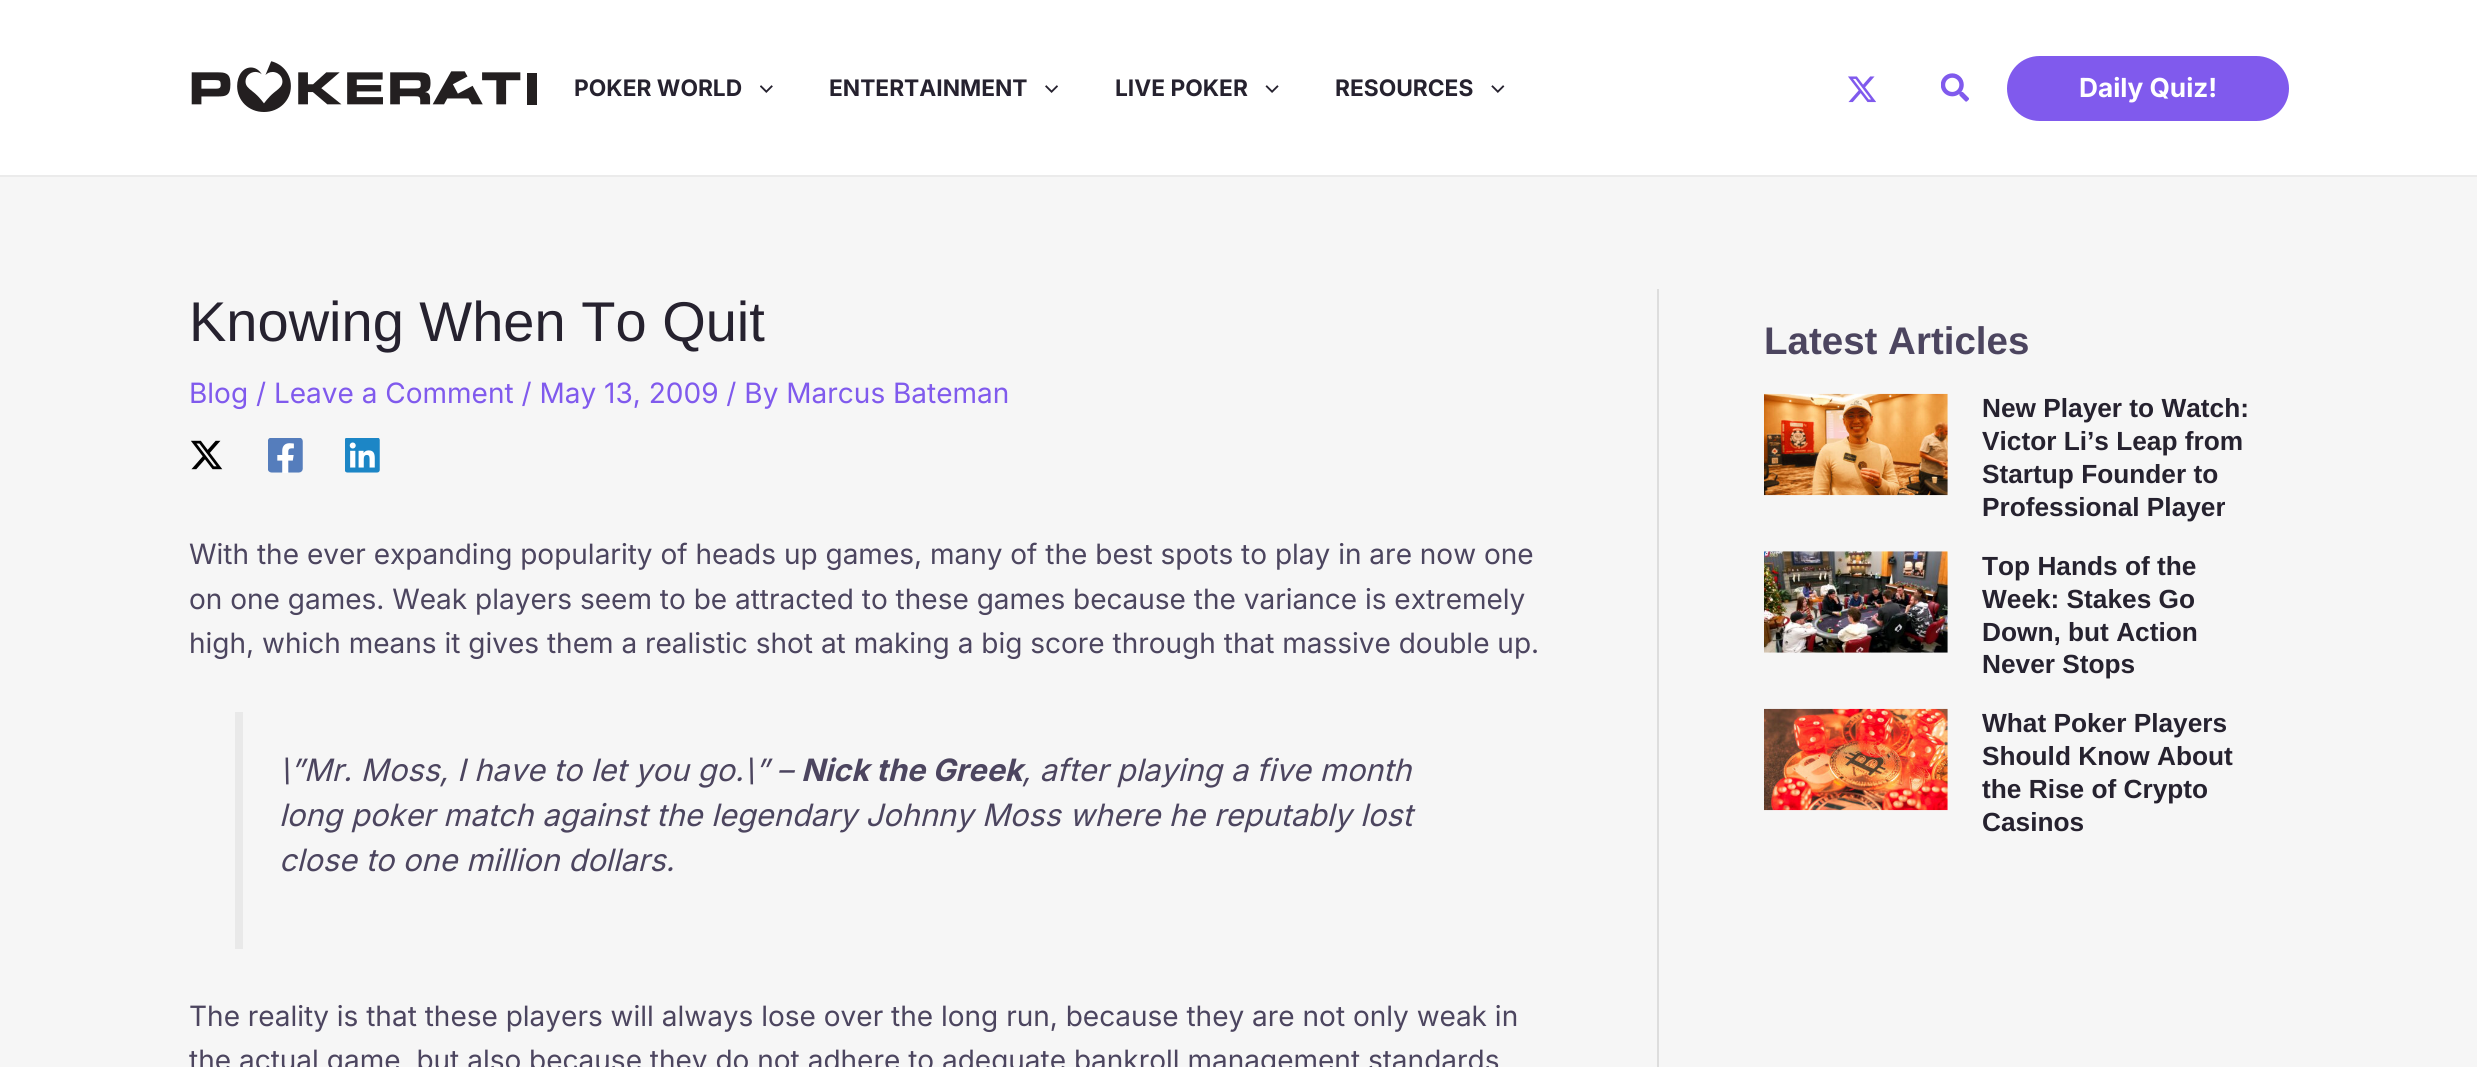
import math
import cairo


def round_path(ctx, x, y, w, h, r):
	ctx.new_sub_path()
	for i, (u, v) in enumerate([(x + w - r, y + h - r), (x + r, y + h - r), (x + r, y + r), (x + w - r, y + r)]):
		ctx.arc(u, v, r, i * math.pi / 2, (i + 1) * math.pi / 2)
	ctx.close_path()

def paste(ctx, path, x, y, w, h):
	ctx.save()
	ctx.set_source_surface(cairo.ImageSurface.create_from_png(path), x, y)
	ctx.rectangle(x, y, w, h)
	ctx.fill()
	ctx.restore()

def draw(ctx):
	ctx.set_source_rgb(0.961, 0.961, 0.961)
	ctx.paint()
	ctx.set_source_rgb(1, 1, 1)
	ctx.rectangle(0, 0, 2477, 175)
	ctx.fill()
	ctx.set_source_rgb(0.918, 0.918, 0.918)
	ctx.rectangle(0, 175, 2477, 2)
	ctx.fill()
	paste(ctx, 'media/1.png', 191, 61, 346, 51)
	ctx.select_font_face('Inter', cairo.FONT_SLANT_NORMAL, cairo.FONT_WEIGHT_BOLD)
	ctx.set_font_size(22.75)
	ctx.set_source_rgb(0.149, 0.133, 0.184)
	ctx.move_to(574, 96)
	ctx.show_text('POKER WORLD')
	paste(ctx, 'media/2.png', 760, 85, 13, 8)
	ctx.move_to(829, 96)
	ctx.show_text('ENTERTAINMENT')
	paste(ctx, 'media/3.png', 1045, 85, 13, 8)
	ctx.move_to(1115, 96)
	ctx.show_text('LIVE POKER')
	paste(ctx, 'media/4.png', 1265, 85, 14, 8)
	ctx.move_to(1335, 96)
	ctx.show_text('RESOURCES')
	paste(ctx, 'media/5.png', 1491, 85, 14, 8)
	paste(ctx, 'media/6.png', 1848, 76, 28, 27)
	paste(ctx, 'media/7.png', 1941, 73, 28, 29)
	ctx.set_source_rgb(0.502, 0.353, 0.929)
	round_path(ctx, 2008, 57, 280, 63, 31.5)
	ctx.fill_preserve()
	ctx.stroke()
	ctx.set_font_size(26.25)
	ctx.set_source_rgb(1, 1, 1)
	ctx.move_to(2079, 97)
	ctx.show_text('Daily Quiz!')
	ctx.set_source_rgb(0.867, 0.867, 0.867)
	ctx.rectangle(1657, 289, 2, 778)
	ctx.fill()
	ctx.select_font_face('Liberation Sans')
	ctx.set_font_size(56)
	ctx.set_source_rgb(0.149, 0.133, 0.184)
	ctx.move_to(189, 341)
	ctx.show_text('Knowing When To Quit')
	ctx.select_font_face('Inter')
	ctx.set_font_size(28)
	ctx.set_source_rgb(0.502, 0.353, 0.929)
	ctx.move_to(189, 403)
	ctx.show_text('Blog / Leave a Comment / May 13, 2009 / By Marcus Bateman')
	paste(ctx, 'media/8.png', 191, 440, 32, 30)
	paste(ctx, 'media/9.png', 268, 438, 35, 35)
	paste(ctx, 'media/10.png', 345, 438, 35, 35)
	ctx.set_source_rgb(0.298, 0.271, 0.373)
	for x, y, s in [
		(189, 564, 'With the ever expanding popularity of heads up games, many of the best spots to play in are now one'),
		(189, 609, 'on one games. Weak players seem to be attracted to these games because the variance is extremely'),
		(189, 653, 'high, which means it gives them a realistic shot at making a big score through that massive double up.'),
	]:
		ctx.move_to(x, y)
		ctx.show_text(s)
	ctx.set_source_rgb(0.914, 0.914, 0.914)
	ctx.rectangle(235, 712, 8, 237)
	ctx.fill()
	ctx.select_font_face('Inter', cairo.FONT_SLANT_ITALIC)
	ctx.set_font_size(30.8)
	ctx.set_source_rgb(0.298, 0.271, 0.373)
	ctx.move_to(279, 781)
	ctx.show_text('\\”Mr. Moss, I have to let you go.\\” –')
	ctx.select_font_face('Inter', cairo.FONT_SLANT_ITALIC, cairo.FONT_WEIGHT_BOLD)
	ctx.move_to(801, 781)
	ctx.show_text('Nick the Greek')
	ctx.select_font_face('Inter', cairo.FONT_SLANT_ITALIC)
	for x, y, s in [
		(1022, 781, ', after playing a five month'),
		(279, 826, 'long poker match against the legendary Johnny Moss where he reputably lost'),
		(279, 871, 'close to one million dollars.'),
	]:
		ctx.move_to(x, y)
		ctx.show_text(s)
	ctx.select_font_face('Inter')
	ctx.set_font_size(28)
	ctx.move_to(189, 1026)
	ctx.show_text('The reality is that these players will always lose over the long run, because they are not only weak in')
	ctx.move_to(189, 1070)
	ctx.show_text('the actual game, but also because they do not adhere to adequate bankroll management standards')
	ctx.select_font_face('Liberation Sans', cairo.FONT_SLANT_NORMAL, cairo.FONT_WEIGHT_BOLD)
	ctx.set_font_size(38.5)
	ctx.move_to(1764, 354)
	ctx.show_text('Latest Articles')
	paste(ctx, 'media/11.png', 1764, 393, 184, 103)
	ctx.set_font_size(26.25)
	ctx.set_source_rgb(0.149, 0.133, 0.184)
	for x, y, s in [
		(1982, 417, 'New Player to Watch:'),
		(1982, 450, 'Victor Li’s Leap from'),
		(1982, 483, 'Startup Founder to'),
		(1982, 516, 'Professional Player'),
	]:
		ctx.move_to(x, y)
		ctx.show_text(s)
	paste(ctx, 'media/12.png', 1764, 551, 184, 102)
	for x, y, s in [
		(1982, 575, 'Top Hands of the'),
		(1982, 608, 'Week: Stakes Go'),
		(1982, 641, 'Down, but Action'),
		(1982, 673, 'Never Stops'),
	]:
		ctx.move_to(x, y)
		ctx.show_text(s)
	paste(ctx, 'media/13.png', 1764, 708, 184, 103)
	for x, y, s in [
		(1982, 732, 'What Poker Players'),
		(1982, 765, 'Should Know About'),
		(1982, 798, 'the Rise of Crypto'),
		(1982, 831, 'Casinos'),
	]:
		ctx.move_to(x, y)
		ctx.show_text(s)


surface = cairo.ImageSurface(cairo.FORMAT_RGB24, 2477, 1067)
ctx = cairo.Context(surface)
options = cairo.FontOptions()
options.set_hint_metrics(cairo.HINT_METRICS_OFF)
options.set_hint_style(cairo.HINT_STYLE_NONE)
ctx.set_font_options(options)
ctx.set_miter_limit(4)
draw(ctx)
surface.write_to_png('image.png')
